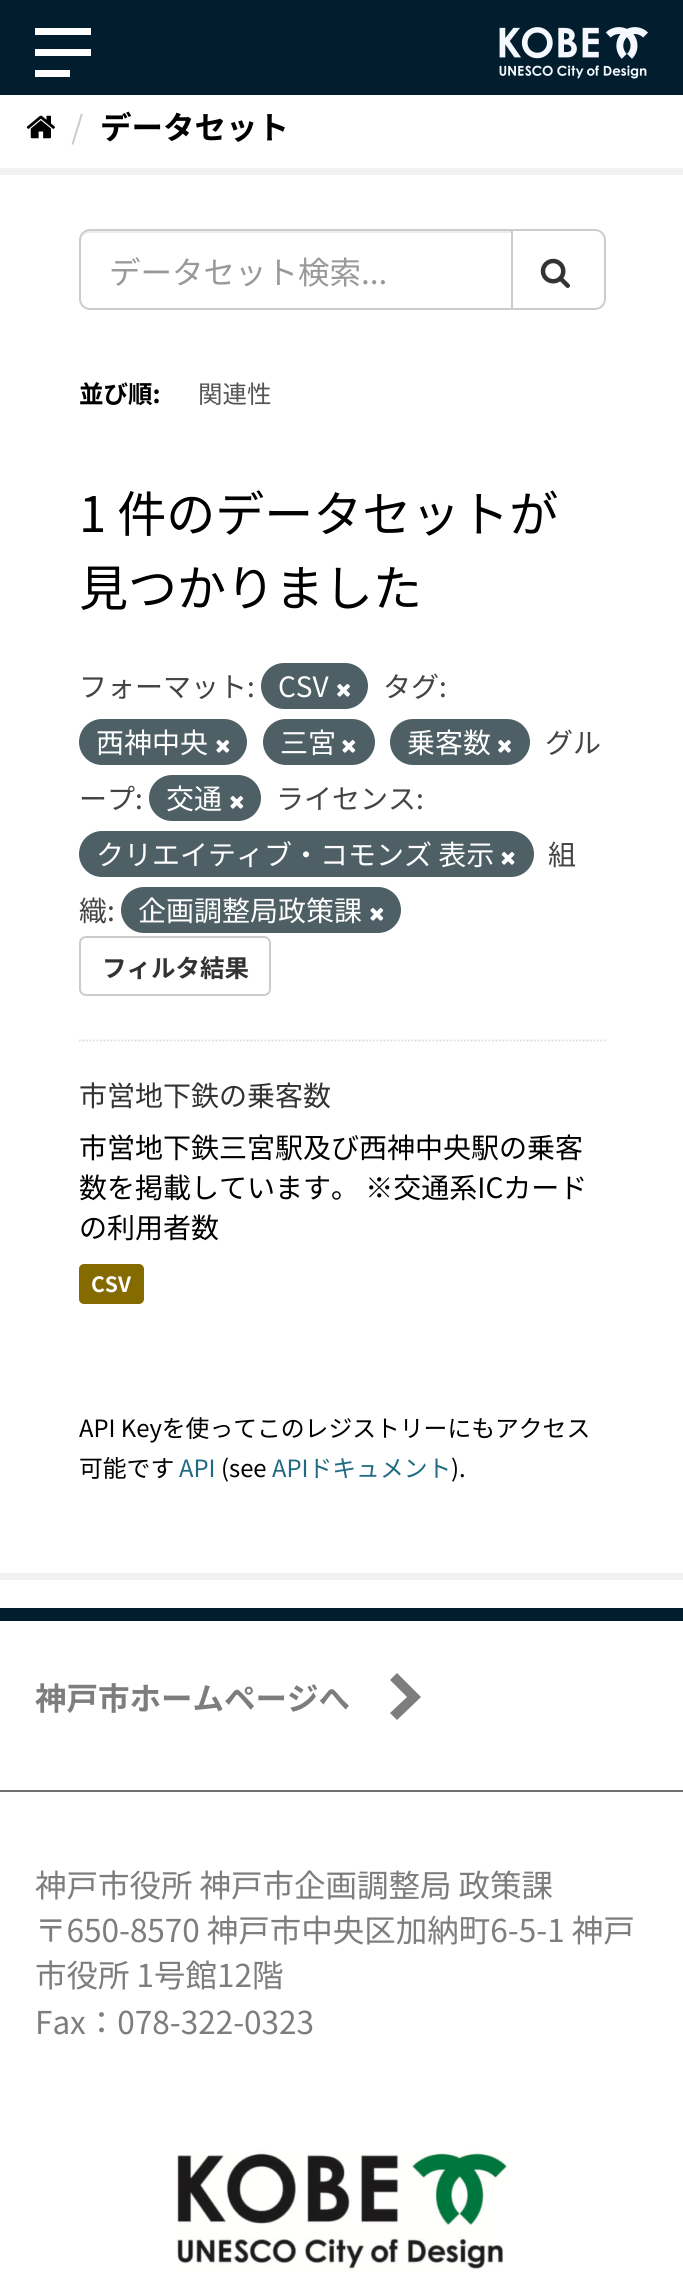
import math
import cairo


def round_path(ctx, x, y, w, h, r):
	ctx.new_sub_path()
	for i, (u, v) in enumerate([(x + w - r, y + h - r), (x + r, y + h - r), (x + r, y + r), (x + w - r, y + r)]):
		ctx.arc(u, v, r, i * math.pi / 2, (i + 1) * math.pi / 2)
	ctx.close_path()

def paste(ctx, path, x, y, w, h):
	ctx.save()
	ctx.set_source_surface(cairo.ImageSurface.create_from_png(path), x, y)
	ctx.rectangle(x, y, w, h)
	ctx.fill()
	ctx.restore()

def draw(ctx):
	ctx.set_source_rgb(1, 1, 1)
	ctx.paint()
	ctx.set_source_rgb(0.008, 0.114, 0.18)
	ctx.rectangle(0, 0, 683, 95)
	ctx.fill()
	ctx.set_source_rgb(1, 1, 1)
	ctx.rectangle(35, 28, 56, 7)
	ctx.rectangle(35, 49, 56, 7)
	ctx.rectangle(35, 70, 35, 7)
	ctx.fill()
	paste(ctx, 'media/1.png', 499, 27, 149, 52)
	paste(ctx, 'media/2.png', 26, 115, 29, 24)
	ctx.select_font_face('Noto Sans JP')
	ctx.set_font_size(31.5)
	ctx.set_source_rgb(0.8, 0.8, 0.8)
	ctx.move_to(71, 139)
	ctx.show_text('/')
	ctx.select_font_face('Noto Sans JP', cairo.FONT_SLANT_NORMAL, cairo.FONT_WEIGHT_BOLD)
	ctx.set_source_rgb(0, 0, 0)
	ctx.move_to(100, 139)
	ctx.show_text('データセット')
	ctx.rectangle(-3.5, 171.5, 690, 1405)
	ctx.set_source_rgb(0.949, 0.949, 0.949)
	ctx.set_line_width(7)
	ctx.stroke()
	ctx.new_path()
	ctx.move_to(79, 1040.5)
	ctx.line_to(605.5, 1040.5)
	ctx.set_source_rgb(0.867, 0.867, 0.867)
	ctx.set_line_width(1.8)
	ctx.set_dash([1.75, 1.75])
	ctx.stroke()
	ctx.set_source_rgb(0.925, 0.925, 0.925)
	ctx.new_path()
	ctx.move_to(89, 233)
	ctx.line_to(511, 233)
	ctx.line_to(511, 231)
	ctx.line_to(90, 231)
	ctx.curve_to(86, 231, 83, 233, 82, 237)
	ctx.curve_to(83, 235, 86, 233, 89, 233)
	ctx.close_path()
	ctx.fill()
	ctx.new_path()
	ctx.move_to(90, 230)
	ctx.line_to(512, 230)
	ctx.line_to(512, 309)
	ctx.line_to(90, 309)
	ctx.curve_to(84.5, 309, 80, 304.5, 80, 299)
	ctx.line_to(80, 240)
	ctx.curve_to(80, 234.5, 84.5, 230, 90, 230)
	ctx.close_path()
	ctx.set_source_rgb(0.8, 0.8, 0.8)
	ctx.set_line_width(2)
	ctx.set_dash([])
	ctx.stroke()
	ctx.select_font_face('Noto Sans JP')
	ctx.set_source_rgb(0.6, 0.6, 0.6)
	ctx.move_to(109, 284)
	ctx.show_text('データセット検索...')
	ctx.set_source_rgb(1, 1, 1)
	ctx.new_path()
	ctx.move_to(512, 230)
	ctx.line_to(595, 230)
	ctx.curve_to(600.5, 230, 605, 234.5, 605, 240)
	ctx.line_to(605, 299)
	ctx.curve_to(605, 304.5, 600.5, 309, 595, 309)
	ctx.line_to(512, 309)
	ctx.close_path()
	ctx.fill_preserve()
	ctx.set_source_rgb(0.8, 0.8, 0.8)
	ctx.stroke()
	paste(ctx, 'media/3.png', 540, 258, 30, 30)
	ctx.select_font_face('Noto Sans JP', cairo.FONT_SLANT_NORMAL, cairo.FONT_WEIGHT_BOLD)
	ctx.set_font_size(24.5)
	ctx.set_source_rgb(0, 0, 0)
	ctx.move_to(79, 403)
	ctx.show_text('並び順:')
	ctx.select_font_face('Noto Sans JP')
	ctx.set_source_rgb(0.333, 0.333, 0.333)
	ctx.move_to(198, 403)
	ctx.show_text('関連性')
	ctx.set_font_size(49)
	ctx.set_source_rgb(0, 0, 0)
	ctx.move_to(79, 532)
	ctx.show_text('1 件のデータセットが')
	ctx.move_to(79, 606)
	ctx.show_text('見つかりました')
	ctx.set_font_size(28)
	ctx.set_source_rgb(0.267, 0.267, 0.267)
	ctx.move_to(79, 697)
	ctx.show_text('フォーマット:')
	ctx.set_source_rgb(0.306, 0.373, 0.396)
	round_path(ctx, 261, 663, 107, 46, 23)
	ctx.fill()
	ctx.set_source_rgb(1, 1, 1)
	ctx.move_to(278, 697)
	ctx.show_text('CSV')
	paste(ctx, 'media/4.png', 337, 683, 13, 14)
	ctx.set_source_rgb(0.267, 0.267, 0.267)
	ctx.move_to(383, 697)
	ctx.show_text('タグ:')
	ctx.set_source_rgb(0.306, 0.373, 0.396)
	round_path(ctx, 79, 719, 168, 46, 23)
	ctx.fill()
	ctx.set_source_rgb(1, 1, 1)
	ctx.move_to(96, 753)
	ctx.show_text('西神中央')
	paste(ctx, 'media/5.png', 216, 739, 14, 14)
	ctx.set_source_rgb(0.306, 0.373, 0.396)
	round_path(ctx, 263, 719, 112, 46, 23)
	ctx.fill()
	ctx.set_source_rgb(1, 1, 1)
	ctx.move_to(280, 753)
	ctx.show_text('三宮')
	paste(ctx, 'media/6.png', 342, 739, 14, 14)
	ctx.set_source_rgb(0.306, 0.373, 0.396)
	round_path(ctx, 390, 719, 140, 46, 23)
	ctx.fill()
	ctx.set_source_rgb(1, 1, 1)
	ctx.move_to(407, 753)
	ctx.show_text('乗客数')
	paste(ctx, 'media/4.png', 498, 739, 13, 14)
	ctx.set_source_rgb(0.267, 0.267, 0.267)
	ctx.move_to(545, 753)
	ctx.show_text('グル')
	ctx.move_to(79, 809)
	ctx.show_text('ープ:')
	ctx.set_source_rgb(0.306, 0.373, 0.396)
	round_path(ctx, 149, 775, 112, 46, 23)
	ctx.fill()
	ctx.set_source_rgb(1, 1, 1)
	ctx.move_to(166, 809)
	ctx.show_text('交通')
	paste(ctx, 'media/5.png', 230, 795, 14, 14)
	ctx.set_source_rgb(0.267, 0.267, 0.267)
	ctx.move_to(276, 809)
	ctx.show_text('ライセンス:')
	ctx.set_source_rgb(0.306, 0.373, 0.396)
	round_path(ctx, 79, 831, 455, 46, 23)
	ctx.fill()
	ctx.set_source_rgb(1, 1, 1)
	ctx.move_to(96, 865)
	ctx.show_text('クリエイティブ・コモンズ 表示')
	paste(ctx, 'media/7.png', 501, 851, 14, 14)
	ctx.set_source_rgb(0.267, 0.267, 0.267)
	ctx.move_to(548, 865)
	ctx.show_text('組')
	ctx.move_to(79, 921)
	ctx.show_text('織:')
	ctx.set_source_rgb(0.306, 0.373, 0.396)
	round_path(ctx, 121, 887, 280, 46, 23)
	ctx.fill()
	ctx.set_source_rgb(1, 1, 1)
	ctx.move_to(138, 921)
	ctx.show_text('企画調整局政策課')
	paste(ctx, 'media/8.png', 370, 907, 14, 14)
	round_path(ctx, 80, 937, 190, 58, 6)
	ctx.set_source_rgb(0.8, 0.8, 0.8)
	ctx.stroke()
	ctx.select_font_face('Noto Sans JP', cairo.FONT_SLANT_NORMAL, cairo.FONT_WEIGHT_BOLD)
	ctx.set_font_size(24.5)
	ctx.set_source_rgb(0.2, 0.2, 0.2)
	ctx.move_to(102, 977)
	ctx.show_text('フィルタ結果')
	ctx.select_font_face('Noto Sans JP')
	ctx.set_font_size(28)
	ctx.move_to(79, 1106)
	ctx.show_text('市営地下鉄の乗客数')
	ctx.set_source_rgb(0, 0, 0)
	for x, y, s in [
		(79, 1158, '市営地下鉄三宮駅及び西神中央駅の乗客'),
		(79, 1198, '数を掲載しています。 ※交通系ICカード'),
		(79, 1238, 'の利用者数'),
	]:
		ctx.move_to(x, y)
		ctx.show_text(s)
	ctx.set_source_rgb(0.522, 0.416, 0)
	round_path(ctx, 79, 1264, 65, 40, 5)
	ctx.fill()
	ctx.select_font_face('Noto Sans JP', cairo.FONT_SLANT_NORMAL, cairo.FONT_WEIGHT_BOLD)
	ctx.set_font_size(21)
	ctx.set_source_rgb(1, 1, 1)
	ctx.move_to(91, 1292)
	ctx.show_text('CSV')
	ctx.select_font_face('Noto Sans JP')
	ctx.set_font_size(23.8)
	ctx.set_source_rgb(0, 0, 0)
	ctx.move_to(79, 1437)
	ctx.show_text('API Keyを使ってこのレジストリーにもアクセス')
	ctx.move_to(79, 1477)
	ctx.show_text('可能です')
	ctx.set_source_rgb(0.125, 0.42, 0.51)
	ctx.move_to(179, 1477)
	ctx.show_text('API')
	ctx.set_source_rgb(0, 0, 0)
	ctx.move_to(221, 1477)
	ctx.show_text('(see')
	ctx.set_source_rgb(0.125, 0.42, 0.51)
	ctx.move_to(272, 1477)
	ctx.show_text('APIドキュメント')
	ctx.set_source_rgb(0, 0, 0)
	ctx.move_to(451, 1477)
	ctx.show_text(').')
	ctx.set_source_rgb(0.008, 0.114, 0.18)
	ctx.rectangle(0, 1608, 683, 13)
	ctx.fill()
	ctx.set_source_rgb(0.49, 0.49, 0.49)
	ctx.new_path()
	ctx.move_to(421, 1697)
	ctx.line_to(397, 1720)
	ctx.line_to(390, 1713)
	ctx.line_to(407, 1697)
	ctx.line_to(390, 1680)
	ctx.line_to(397, 1673)
	ctx.close_path()
	ctx.fill()
	ctx.select_font_face('Noto Sans JP', cairo.FONT_SLANT_NORMAL, cairo.FONT_WEIGHT_BOLD)
	ctx.set_font_size(31.5)
	ctx.move_to(35, 1710)
	ctx.show_text('神戸市ホームページへ')
	ctx.set_source_rgb(0.439, 0.439, 0.439)
	ctx.rectangle(0, 1790, 683, 2)
	ctx.fill()
	ctx.select_font_face('Noto Sans JP')
	ctx.set_source_rgb(0.49, 0.49, 0.49)
	for x, y, s in [
		(35, 1897, '神戸市役所 神戸市企画調整局 政策課'),
		(35, 1942, '〒650-8570 神戸市中央区加納町6-5-1 神戸'),
		(35, 1987, '市役所 1号館12階'),
		(35, 2034, 'Fax：078-322-0323'),
	]:
		ctx.move_to(x, y)
		ctx.show_text(s)
	paste(ctx, 'media/9.png', 176, 2149, 332, 122)


surface = cairo.ImageSurface(cairo.FORMAT_RGB24, 683, 2294)
ctx = cairo.Context(surface)
options = cairo.FontOptions()
options.set_hint_metrics(cairo.HINT_METRICS_OFF)
options.set_hint_style(cairo.HINT_STYLE_NONE)
ctx.set_font_options(options)
ctx.set_miter_limit(4)
draw(ctx)
surface.write_to_png('image.png')
